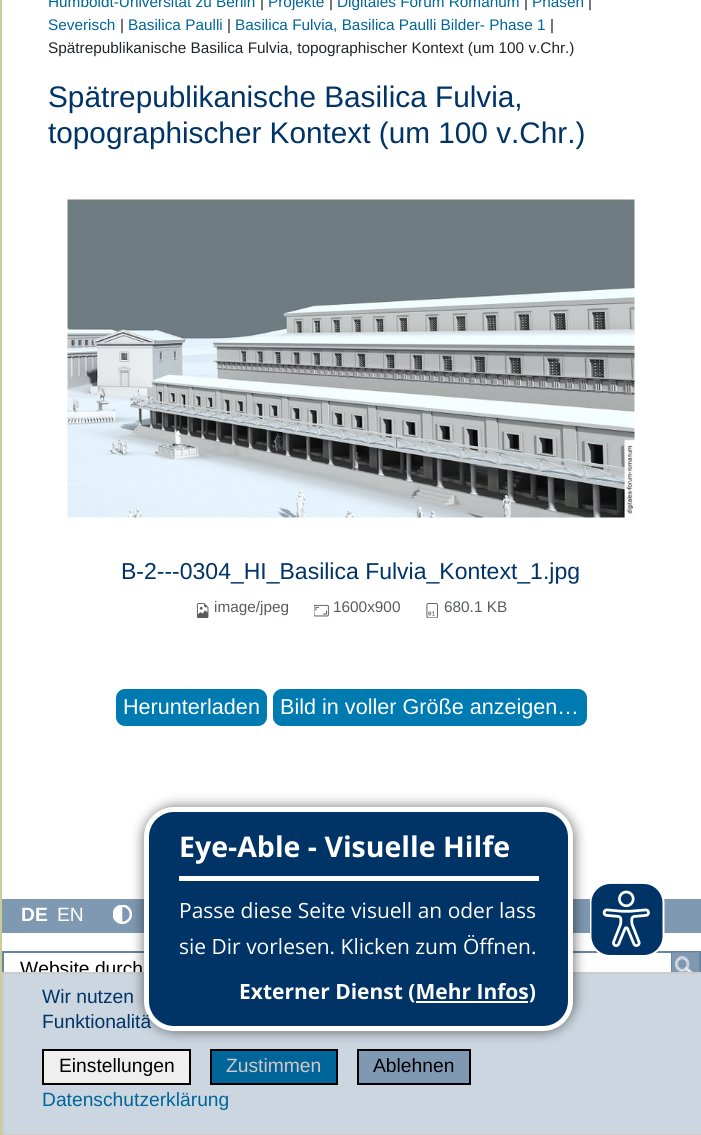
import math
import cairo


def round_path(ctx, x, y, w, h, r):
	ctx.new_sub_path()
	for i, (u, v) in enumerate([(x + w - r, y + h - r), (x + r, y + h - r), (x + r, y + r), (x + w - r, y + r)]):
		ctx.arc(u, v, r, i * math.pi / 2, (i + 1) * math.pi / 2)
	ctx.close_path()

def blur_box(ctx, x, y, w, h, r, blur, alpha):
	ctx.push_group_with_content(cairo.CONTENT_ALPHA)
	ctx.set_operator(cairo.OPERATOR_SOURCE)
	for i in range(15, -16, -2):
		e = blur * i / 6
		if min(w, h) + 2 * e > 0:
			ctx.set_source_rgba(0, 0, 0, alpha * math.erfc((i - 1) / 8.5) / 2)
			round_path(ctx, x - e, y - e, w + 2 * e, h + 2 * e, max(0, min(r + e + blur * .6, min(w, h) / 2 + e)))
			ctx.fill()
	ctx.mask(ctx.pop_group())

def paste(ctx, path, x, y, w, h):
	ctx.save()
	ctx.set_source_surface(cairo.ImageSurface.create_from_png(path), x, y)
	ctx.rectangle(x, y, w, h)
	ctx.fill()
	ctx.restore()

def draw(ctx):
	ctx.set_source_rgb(1, 1, 1)
	ctx.paint()
	ctx.set_source_rgb(0.8, 0.8, 0.6)
	ctx.rectangle(0, 0, 2, 1135)
	ctx.fill()
	ctx.select_font_face('Liberation Sans')
	ctx.set_font_size(15.35)
	ctx.set_source_rgb(0, 0.4, 0.6)
	ctx.move_to(48, 7)
	ctx.show_text('Humboldt-Universität zu Berlin')
	ctx.set_source_rgb(0.129, 0.145, 0.161)
	ctx.move_to(260, 7)
	ctx.show_text('|')
	ctx.set_source_rgb(0, 0.4, 0.6)
	ctx.move_to(268, 7)
	ctx.show_text('Projekte')
	ctx.set_source_rgb(0.129, 0.145, 0.161)
	ctx.move_to(329, 7)
	ctx.show_text('|')
	ctx.set_source_rgb(0, 0.4, 0.6)
	ctx.move_to(337, 7)
	ctx.show_text('Digitales Forum Romanum')
	ctx.set_source_rgb(0.129, 0.145, 0.161)
	ctx.move_to(524, 7)
	ctx.show_text('|')
	ctx.set_source_rgb(0, 0.4, 0.6)
	ctx.move_to(532, 7)
	ctx.show_text('Phasen')
	ctx.set_source_rgb(0.129, 0.145, 0.161)
	ctx.move_to(588, 7)
	ctx.show_text('|')
	ctx.set_source_rgb(0, 0.4, 0.6)
	ctx.move_to(48, 30)
	ctx.show_text('Severisch')
	ctx.set_source_rgb(0.129, 0.145, 0.161)
	ctx.move_to(120, 30)
	ctx.show_text('|')
	ctx.set_source_rgb(0, 0.4, 0.6)
	ctx.move_to(128, 30)
	ctx.show_text('Basilica Paulli')
	ctx.set_source_rgb(0.129, 0.145, 0.161)
	ctx.move_to(227, 30)
	ctx.show_text('|')
	ctx.set_source_rgb(0, 0.4, 0.6)
	ctx.move_to(235, 30)
	ctx.show_text('Basilica Fulvia, Basilica Paulli Bilder- Phase 1')
	ctx.set_source_rgb(0.129, 0.145, 0.161)
	ctx.move_to(550, 30)
	ctx.show_text('|')
	ctx.move_to(48, 53)
	ctx.show_text('Spätrepublikanische Basilica Fulvia, topographischer Kontext (um 100 v.Chr.)')
	ctx.set_font_size(29.75)
	ctx.set_source_rgb(0, 0.2, 0.4)
	ctx.move_to(48, 107)
	ctx.show_text('Spätrepublikanische Basilica Fulvia,')
	ctx.move_to(48, 143)
	ctx.show_text('topographischer Kontext (um 100 v.Chr.)')
	paste(ctx, 'media/1.png', 67, 199, 568, 319)
	ctx.set_font_size(23)
	ctx.move_to(121, 579)
	ctx.show_text('B-2---0304_HI_Basilica Fulvia_Kontext_1.jpg')
	paste(ctx, 'media/2.png', 196, 603, 13, 15)
	ctx.set_font_size(15.35)
	ctx.set_source_rgb(0.349, 0.361, 0.373)
	ctx.move_to(214, 612)
	ctx.show_text('image/jpeg')
	paste(ctx, 'media/3.png', 314, 604, 15, 13)
	ctx.move_to(333, 612)
	ctx.show_text('1600x900')
	paste(ctx, 'media/4.png', 426, 603, 12, 15)
	ctx.move_to(444, 612)
	ctx.show_text('680.1 KB')
	ctx.set_source_rgb(0, 0.482, 0.694)
	round_path(ctx, 116, 689, 151, 37, 9)
	ctx.fill()
	ctx.set_font_size(21.6)
	ctx.set_source_rgb(1, 1, 1)
	ctx.move_to(123, 714)
	ctx.show_text('Herunterladen')
	ctx.set_source_rgb(0, 0.482, 0.694)
	round_path(ctx, 273, 689, 314, 37, 9)
	ctx.fill()
	ctx.set_source_rgb(1, 1, 1)
	ctx.move_to(280, 714)
	ctx.show_text('Bild in voller Größe anzeigen…')
	ctx.set_source_rgb(0.502, 0.6, 0.698)
	ctx.rectangle(2, 899, 699, 34)
	ctx.fill()
	ctx.select_font_face('Liberation Sans', cairo.FONT_SLANT_NORMAL, cairo.FONT_WEIGHT_BOLD)
	ctx.set_font_size(19.25)
	ctx.set_source_rgb(1, 1, 1)
	ctx.move_to(21, 921)
	ctx.show_text('DE')
	ctx.select_font_face('Liberation Sans')
	ctx.move_to(57, 921)
	ctx.show_text('EN')
	paste(ctx, 'media/5.png', 113, 905, 19, 19)
	ctx.rectangle(3, 952, 697, 31)
	ctx.set_source_rgb(0.4, 0.522, 0.639)
	ctx.stroke()
	ctx.set_source_rgb(0, 0, 0)
	ctx.move_to(20, 975)
	ctx.show_text('Website durch')
	ctx.rectangle(672, 952, 28, 31)
	ctx.set_source_rgb(0.4, 0.522, 0.639)
	ctx.stroke()
	paste(ctx, 'media/6.png', 672, 952, 27, 20)
	ctx.set_source_rgb(0.8, 0.839, 0.878)
	ctx.rectangle(3, 973, 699, 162)
	ctx.fill_preserve()
	ctx.set_source_rgb(0.8, 0.8, 0.8)
	ctx.stroke()
	ctx.set_source_rgb(0.937, 0.937, 0.937)
	ctx.rectangle(43, 1050, 147, 34)
	ctx.fill_preserve()
	ctx.set_source_rgb(0, 0, 0)
	ctx.stroke()
	ctx.set_source_rgb(0, 0.4, 0.6)
	ctx.rectangle(211, 1050, 126, 34)
	ctx.fill_preserve()
	ctx.set_source_rgb(0, 0, 0)
	ctx.stroke()
	ctx.set_source_rgb(0.502, 0.6, 0.698)
	ctx.rectangle(358, 1050, 112, 34)
	ctx.fill_preserve()
	ctx.set_source_rgb(0, 0, 0)
	ctx.stroke()
	ctx.set_source_rgb(0, 0, 0)
	blur_box(ctx, 143, 806, 432, 226, 32, 6, 0.5)
	ctx.set_source_rgb(0, 0.2, 0.4)
	round_path(ctx, 146.5, 809.5, 424, 219, 27.5)
	ctx.fill_preserve()
	ctx.set_source_rgb(1, 1, 1)
	ctx.set_line_width(5)
	ctx.stroke()
	ctx.rectangle(179, 876, 360, 5)
	ctx.fill()
	ctx.select_font_face('Open Sans', cairo.FONT_SLANT_NORMAL, cairo.FONT_WEIGHT_BOLD)
	ctx.set_font_size(28.5)
	ctx.move_to(179, 857)
	ctx.show_text('Eye-Able - Visuelle Hilfe')
	ctx.select_font_face('Open Sans')
	ctx.set_font_size(21)
	ctx.move_to(179, 918)
	ctx.show_text('Passe diese Seite visuell an oder lass')
	ctx.move_to(179, 954)
	ctx.show_text('sie Dir vorlesen. Klicken zum Öffnen.')
	ctx.select_font_face('Open Sans', cairo.FONT_SLANT_NORMAL, cairo.FONT_WEIGHT_BOLD)
	ctx.move_to(239, 999)
	ctx.show_text('Externer Dienst (Mehr Infos)')
	ctx.rectangle(416, 1001, 112, 2)
	ctx.fill()
	paste(ctx, 'media/7.png', 590, 883, 75, 72)
	ctx.select_font_face('Liberation Sans')
	ctx.set_font_size(19.25)
	ctx.set_source_rgb(0, 0.2, 0.4)
	ctx.move_to(42, 1003)
	ctx.show_text('Wir nutzen')
	ctx.move_to(42, 1028)
	ctx.show_text('Funktionalitä')
	ctx.set_source_rgb(0, 0, 0)
	ctx.move_to(59, 1072)
	ctx.show_text('Einstellungen')
	ctx.set_source_rgb(0.835, 0.78, 0.78)
	ctx.move_to(226, 1072)
	ctx.show_text('Zustimmen')
	ctx.set_source_rgb(0, 0, 0)
	ctx.move_to(373, 1072)
	ctx.show_text('Ablehnen')
	ctx.set_source_rgb(0, 0.4, 0.6)
	ctx.move_to(42, 1106)
	ctx.show_text('Datenschutzerklärung')


surface = cairo.ImageSurface(cairo.FORMAT_RGB24, 701, 1135)
ctx = cairo.Context(surface)
options = cairo.FontOptions()
options.set_hint_metrics(cairo.HINT_METRICS_OFF)
options.set_hint_style(cairo.HINT_STYLE_NONE)
ctx.set_font_options(options)
ctx.set_miter_limit(4)
draw(ctx)
surface.write_to_png('image.png')
